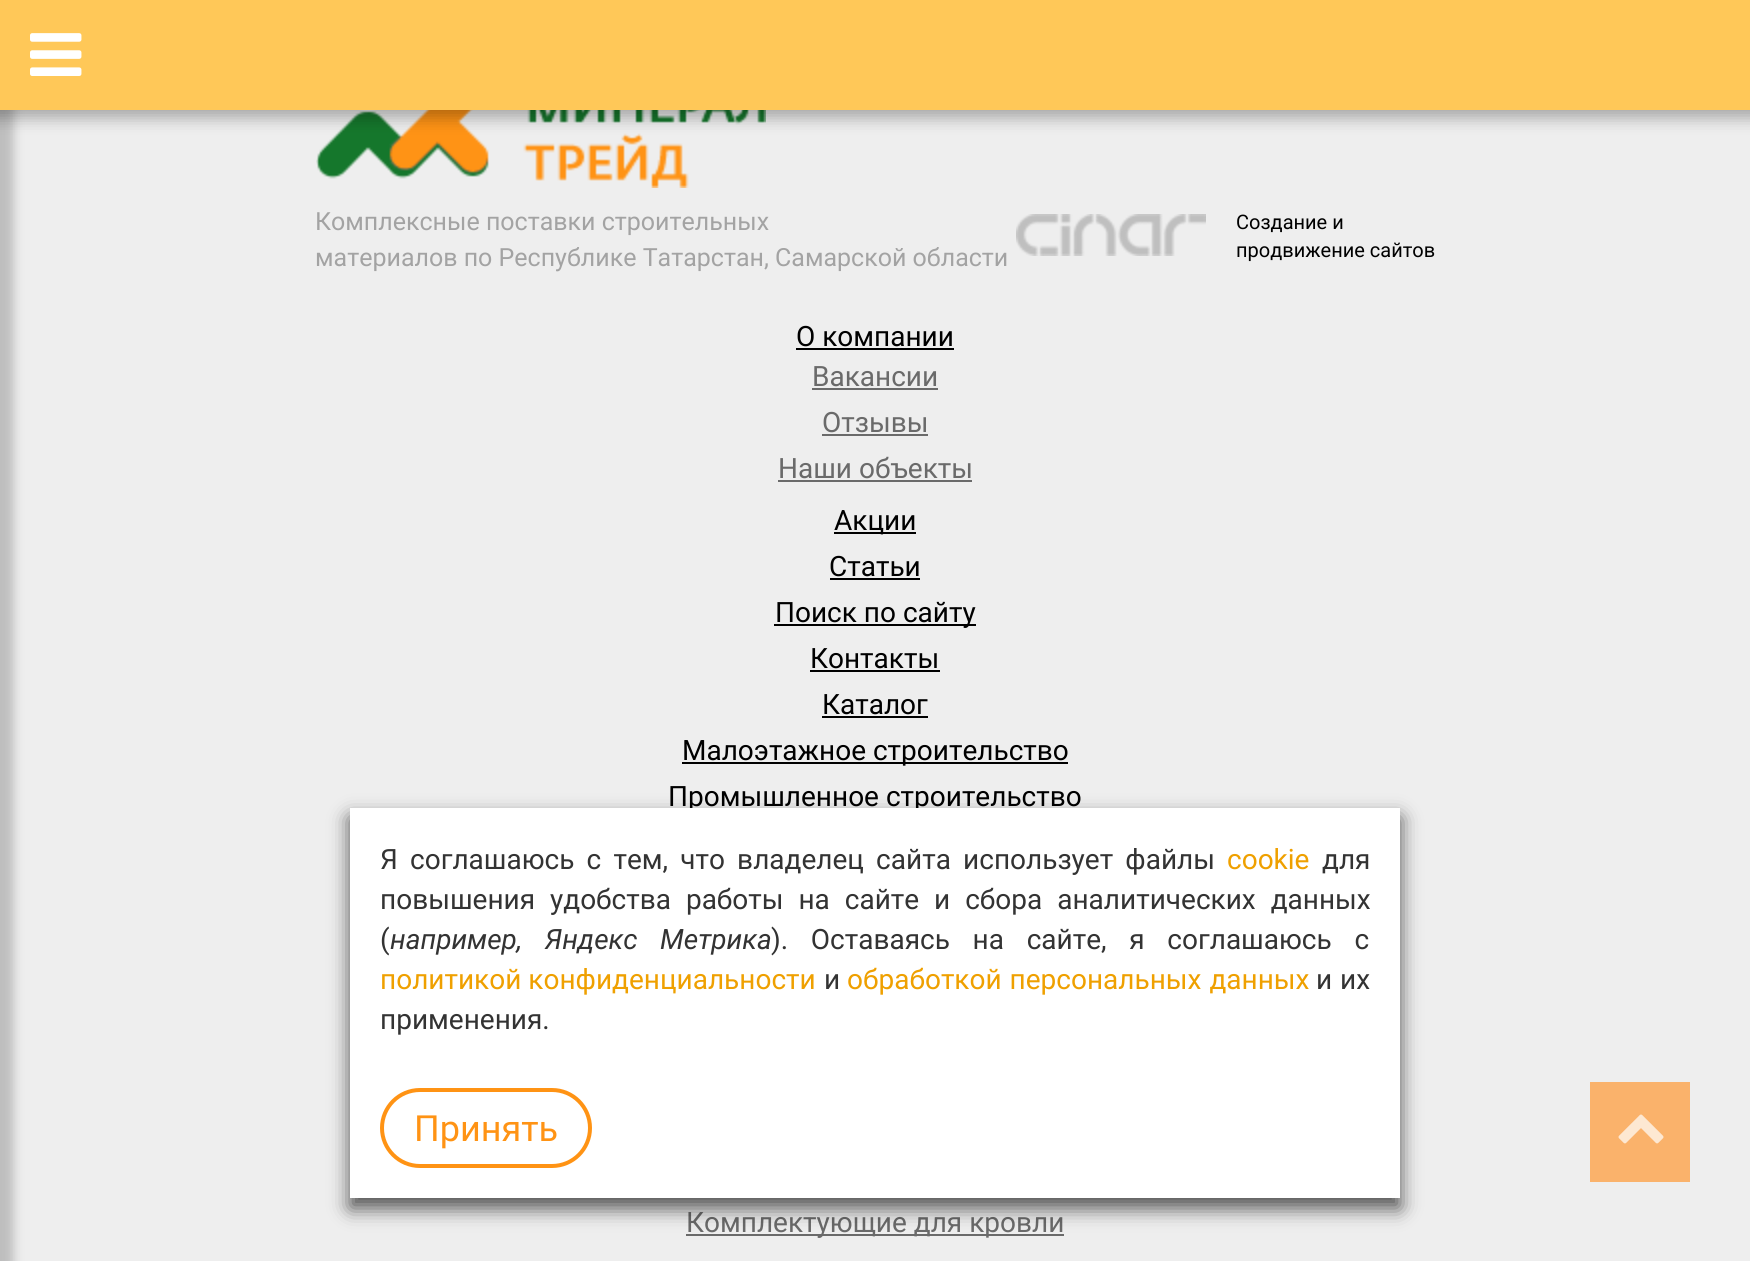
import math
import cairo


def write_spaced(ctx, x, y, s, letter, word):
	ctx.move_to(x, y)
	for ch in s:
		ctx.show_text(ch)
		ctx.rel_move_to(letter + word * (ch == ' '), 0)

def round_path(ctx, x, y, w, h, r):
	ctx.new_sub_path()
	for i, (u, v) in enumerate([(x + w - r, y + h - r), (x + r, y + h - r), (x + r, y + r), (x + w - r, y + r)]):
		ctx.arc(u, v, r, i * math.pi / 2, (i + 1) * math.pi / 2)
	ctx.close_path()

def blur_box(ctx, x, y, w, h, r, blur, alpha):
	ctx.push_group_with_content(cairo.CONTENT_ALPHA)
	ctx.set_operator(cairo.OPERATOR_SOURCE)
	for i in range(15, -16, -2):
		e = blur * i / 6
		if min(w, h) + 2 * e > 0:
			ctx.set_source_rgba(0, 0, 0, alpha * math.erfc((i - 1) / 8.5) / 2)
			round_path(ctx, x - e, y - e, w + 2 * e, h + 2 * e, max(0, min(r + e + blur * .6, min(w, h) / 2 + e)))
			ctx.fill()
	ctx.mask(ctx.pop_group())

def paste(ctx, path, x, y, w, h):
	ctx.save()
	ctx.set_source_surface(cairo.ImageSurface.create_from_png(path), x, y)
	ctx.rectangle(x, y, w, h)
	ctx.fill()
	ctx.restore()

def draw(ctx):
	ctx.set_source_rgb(0.933, 0.933, 0.933)
	ctx.paint()
	ctx.set_source_rgb(0, 0, 0)
	blur_box(ctx, -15, 6, 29, 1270, 0, 5, 0.2)
	paste(ctx, 'media/2.png', 316, 110, 450, 78)
	blur_box(ctx, -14, -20, 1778, 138, 0, 8, 0.3)
	ctx.set_source_rgb(1, 0.784, 0.345)
	ctx.rectangle(0, 0, 1750, 110)
	ctx.fill()
	paste(ctx, 'media/1.png', 30, 33, 52, 43)
	ctx.select_font_face('Roboto')
	ctx.set_font_size(25)
	ctx.set_source_rgb(0.639, 0.639, 0.639)
	ctx.move_to(315, 230)
	ctx.show_text('Комплексные поставки строительных')
	ctx.move_to(315, 266)
	ctx.show_text('материалов по Республике Татарстан, Самарской области')
	paste(ctx, 'media/3.png', 1016, 214, 190, 42)
	ctx.set_font_size(20)
	ctx.set_source_rgb(0, 0, 0)
	ctx.move_to(1236, 229)
	ctx.show_text('Создание и')
	ctx.move_to(1236, 257)
	ctx.show_text('продвижение сайтов')
	ctx.set_font_size(28)
	ctx.move_to(796, 346)
	ctx.show_text('О компании')
	ctx.rectangle(796, 348, 158, 2)
	ctx.fill()
	ctx.set_source_rgb(0.416, 0.416, 0.416)
	ctx.move_to(812, 386)
	ctx.show_text('Вакансии')
	ctx.rectangle(812, 388, 126, 2)
	ctx.fill()
	ctx.move_to(822, 432)
	ctx.show_text('Отзывы')
	ctx.rectangle(822, 434, 106, 2)
	ctx.fill()
	ctx.move_to(778, 478)
	ctx.show_text('Наши объекты')
	ctx.rectangle(778, 480, 194, 2)
	ctx.fill()
	ctx.set_source_rgb(0, 0, 0)
	ctx.rectangle(834, 532, 82, 2)
	ctx.fill()
	ctx.move_to(834, 530)
	ctx.show_text('Акции')
	ctx.move_to(829, 576)
	ctx.show_text('Статьи')
	ctx.rectangle(830, 578, 90, 2)
	ctx.fill()
	ctx.rectangle(774, 624, 202, 2)
	ctx.fill()
	ctx.move_to(775, 622)
	ctx.show_text('Поиск по сайту')
	ctx.move_to(810, 668)
	ctx.show_text('Контакты')
	ctx.rectangle(810, 670, 130, 2)
	ctx.fill()
	ctx.move_to(822, 714)
	ctx.show_text('Каталог')
	ctx.rectangle(822, 716, 106, 2)
	ctx.fill()
	ctx.rectangle(682, 762, 386, 2)
	ctx.fill()
	ctx.move_to(682, 760)
	ctx.show_text('Малоэтажное строительство')
	ctx.move_to(668, 806)
	ctx.show_text('Промышленное строительство')
	ctx.set_source_rgb(0.416, 0.416, 0.416)
	ctx.rectangle(686, 1234, 378, 2)
	ctx.fill()
	ctx.move_to(686, 1232)
	ctx.show_text('Комплектующие для кровли')
	ctx.set_source_rgb(0, 0, 0)
	blur_box(ctx, 350, 818, 1050, 390, 0, 10, 0.67)
	ctx.set_source_rgb(1, 1, 1)
	ctx.rectangle(350, 808, 1050, 390)
	ctx.fill()
	ctx.set_source_rgb(0.2, 0.2, 0.2)
	write_spaced(ctx, 380, 869, 'Я соглашаюсь с тем, что владелец сайта использует файлы', 0, 5.25)
	ctx.set_source_rgb(0.937, 0.627, 0)
	ctx.move_to(1227, 869)
	ctx.show_text('cookie')
	ctx.set_source_rgb(0.2, 0.2, 0.2)
	ctx.move_to(1322, 869)
	ctx.show_text('для')
	write_spaced(ctx, 380, 909, 'повышения удобства работы на сайте и сбора аналитических данных', 0, 8)
	ctx.move_to(380, 949)
	ctx.show_text('(')
	ctx.select_font_face('Roboto', cairo.FONT_SLANT_ITALIC)
	write_spaced(ctx, 390, 949, 'например, Яндекс Метрика', 0, 15.75)
	ctx.select_font_face('Roboto')
	write_spaced(ctx, 771, 949, '). Оставаясь на сайте, я соглашаюсь с', 0, 15.75)
	ctx.set_source_rgb(0.937, 0.627, 0)
	ctx.move_to(380, 989)
	ctx.show_text('политикой конфиденциальности')
	ctx.set_source_rgb(0.2, 0.2, 0.2)
	ctx.move_to(824, 989)
	ctx.show_text('и')
	ctx.set_source_rgb(0.937, 0.627, 0)
	write_spaced(ctx, 847, 989, 'обработкой персональных данных', 0, 1)
	ctx.set_source_rgb(0.2, 0.2, 0.2)
	write_spaced(ctx, 1316, 989, 'и их', 0, 1)
	ctx.move_to(380, 1029)
	ctx.show_text('применения.')
	round_path(ctx, 382, 1090, 208, 76, 38)
	ctx.set_source_rgb(1, 0.576, 0.082)
	ctx.set_line_width(4)
	ctx.stroke()
	ctx.set_font_size(36)
	ctx.move_to(414, 1141)
	ctx.show_text('Принять')
	ctx.set_source_rgb(0.98, 0.698, 0.42)
	ctx.rectangle(1590, 1082, 100, 100)
	ctx.fill()
	paste(ctx, 'media/4.png', 1618, 1114, 46, 30)


surface = cairo.ImageSurface(cairo.FORMAT_RGB24, 1750, 1261)
ctx = cairo.Context(surface)
options = cairo.FontOptions()
options.set_hint_metrics(cairo.HINT_METRICS_OFF)
options.set_hint_style(cairo.HINT_STYLE_NONE)
ctx.set_font_options(options)
ctx.set_miter_limit(4)
draw(ctx)
surface.write_to_png('image.png')
